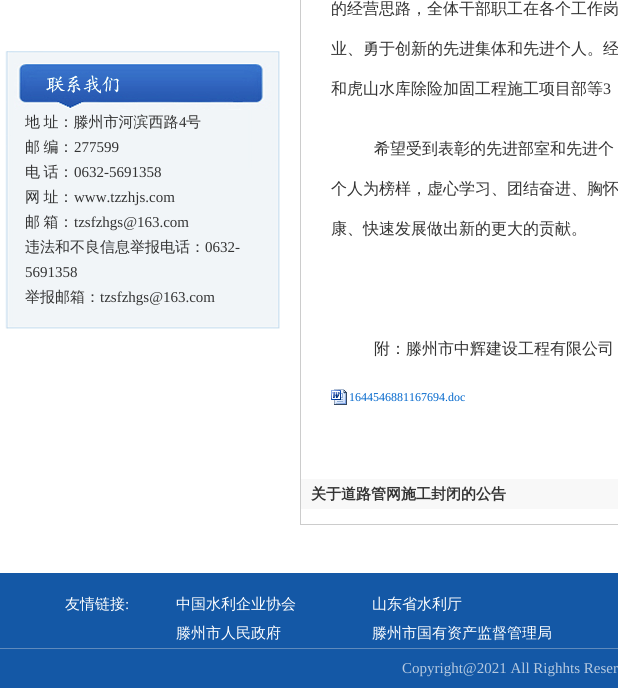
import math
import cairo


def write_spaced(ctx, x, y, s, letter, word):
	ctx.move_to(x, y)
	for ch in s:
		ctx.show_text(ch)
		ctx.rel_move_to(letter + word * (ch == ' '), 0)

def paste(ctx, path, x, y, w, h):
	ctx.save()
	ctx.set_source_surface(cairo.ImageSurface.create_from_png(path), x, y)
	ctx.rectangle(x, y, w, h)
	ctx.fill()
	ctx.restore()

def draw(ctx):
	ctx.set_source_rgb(1, 1, 1)
	ctx.paint()
	paste(ctx, 'media/1.png', 5, 51, 275, 278)
	ctx.select_font_face('WenQuanYi Zen Hei Medium')
	ctx.set_font_size(15)
	ctx.set_source_rgb(0.2, 0.2, 0.2)
	write_spaced(ctx, 25, 127, '地 址：滕州市河滨西路', 0, -1)
	ctx.select_font_face('Liberation Serif')
	ctx.move_to(179, 127)
	ctx.show_text('4')
	ctx.select_font_face('WenQuanYi Zen Hei Medium')
	ctx.move_to(186, 127)
	ctx.show_text('号')
	write_spaced(ctx, 25, 152, '邮 编：', 0, -1)
	ctx.select_font_face('Liberation Serif')
	ctx.move_to(74, 152)
	ctx.show_text('277599')
	ctx.select_font_face('WenQuanYi Zen Hei Medium')
	write_spaced(ctx, 25, 177, '电 话：', 0, -1)
	ctx.select_font_face('Liberation Serif')
	ctx.move_to(74, 177)
	ctx.show_text('0632-5691358')
	ctx.select_font_face('WenQuanYi Zen Hei Medium')
	write_spaced(ctx, 25, 202, '网 址：', 0, -1)
	ctx.select_font_face('Liberation Serif')
	ctx.move_to(74, 202)
	ctx.show_text('www.tzzhjs.com')
	ctx.select_font_face('WenQuanYi Zen Hei Medium')
	write_spaced(ctx, 25, 227, '邮 箱：', 0, -1)
	ctx.select_font_face('Liberation Serif')
	ctx.move_to(74, 227)
	ctx.show_text('tzsfzhgs@163.com')
	ctx.select_font_face('WenQuanYi Zen Hei Medium')
	ctx.move_to(25, 252)
	ctx.show_text('违法和不良信息举报电话：')
	ctx.select_font_face('Liberation Serif')
	ctx.move_to(205, 252)
	ctx.show_text('0632-')
	ctx.move_to(25, 277)
	ctx.show_text('5691358')
	ctx.select_font_face('WenQuanYi Zen Hei Medium')
	ctx.move_to(25, 302)
	ctx.show_text('举报邮箱：')
	ctx.select_font_face('Liberation Serif')
	ctx.move_to(100, 302)
	ctx.show_text('tzsfzhgs@163.com')
	ctx.rectangle(300.5, -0.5, 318, 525)
	ctx.set_source_rgb(0.8, 0.8, 0.8)
	ctx.set_line_width(1)
	ctx.stroke()
	ctx.select_font_face('WenQuanYi Zen Hei Medium')
	ctx.set_font_size(16)
	ctx.set_source_rgb(0.2, 0.2, 0.2)
	for x, y, s in [
		(331, 14, '的经营思路，全体干部职工在各个工作岗'),
		(331, 54, '业、勇于创新的先进集体和先进个人。经'),
		(331, 94, '和虎山水库除险加固工程施工项目部等'),
	]:
		ctx.move_to(x, y)
		ctx.show_text(s)
	ctx.select_font_face('Liberation Serif')
	ctx.move_to(603, 94)
	ctx.show_text('3')
	ctx.select_font_face('WenQuanYi Zen Hei Medium')
	for x, y, s in [
		(374, 154, '希望受到表彰的先进部室和先进个'),
		(331, 194, '个人为榜样，虚心学习、团结奋进、胸怀'),
		(331, 234, '康、快速发展做出新的更大的贡献。'),
		(374, 354, '附：滕州市中辉建设工程有限公司'),
	]:
		ctx.move_to(x, y)
		ctx.show_text(s)
	paste(ctx, 'media/2.png', 331, 389, 16, 16)
	ctx.select_font_face('Liberation Serif')
	ctx.set_font_size(12)
	ctx.set_source_rgb(0, 0.4, 0.8)
	ctx.move_to(349, 401)
	ctx.show_text('1644546881167694.doc')
	ctx.set_source_rgb(0.969, 0.969, 0.969)
	ctx.rectangle(301, 479, 317, 30)
	ctx.fill()
	ctx.select_font_face('WenQuanYi Zen Hei', cairo.FONT_SLANT_NORMAL, cairo.FONT_WEIGHT_BOLD)
	ctx.set_font_size(15)
	ctx.set_source_rgb(0.2, 0.2, 0.2)
	ctx.move_to(311, 499)
	ctx.show_text('关于道路管网施工封闭的公告')
	ctx.set_source_rgb(0.082, 0.345, 0.651)
	ctx.rectangle(0, 573, 618, 115)
	ctx.fill()
	ctx.select_font_face('WenQuanYi Zen Hei Medium')
	ctx.set_source_rgb(1, 1, 1)
	ctx.move_to(65, 609)
	ctx.show_text('友情链接')
	ctx.select_font_face('Liberation Serif')
	ctx.move_to(125, 609)
	ctx.show_text(':')
	ctx.select_font_face('WenQuanYi Zen Hei Medium')
	for x, y, s in [
		(176, 609, '中国水利企业协会'),
		(372, 609, '山东省水利厅'),
		(176, 638, '滕州市人民政府'),
		(372, 638, '滕州市国有资产监督管理局'),
	]:
		ctx.move_to(x, y)
		ctx.show_text(s)
	ctx.set_source_rgb(0.373, 0.541, 0.737)
	ctx.rectangle(0, 648, 618, 1)
	ctx.fill()
	ctx.select_font_face('Liberation Serif')
	ctx.set_source_rgb(0.71, 0.788, 0.878)
	ctx.move_to(402, 673)
	ctx.show_text('Copyright@2021 All Righhts Reser')


surface = cairo.ImageSurface(cairo.FORMAT_RGB24, 618, 688)
ctx = cairo.Context(surface)
options = cairo.FontOptions()
options.set_hint_metrics(cairo.HINT_METRICS_OFF)
options.set_hint_style(cairo.HINT_STYLE_NONE)
ctx.set_font_options(options)
ctx.set_miter_limit(4)
draw(ctx)
surface.write_to_png('image.png')
